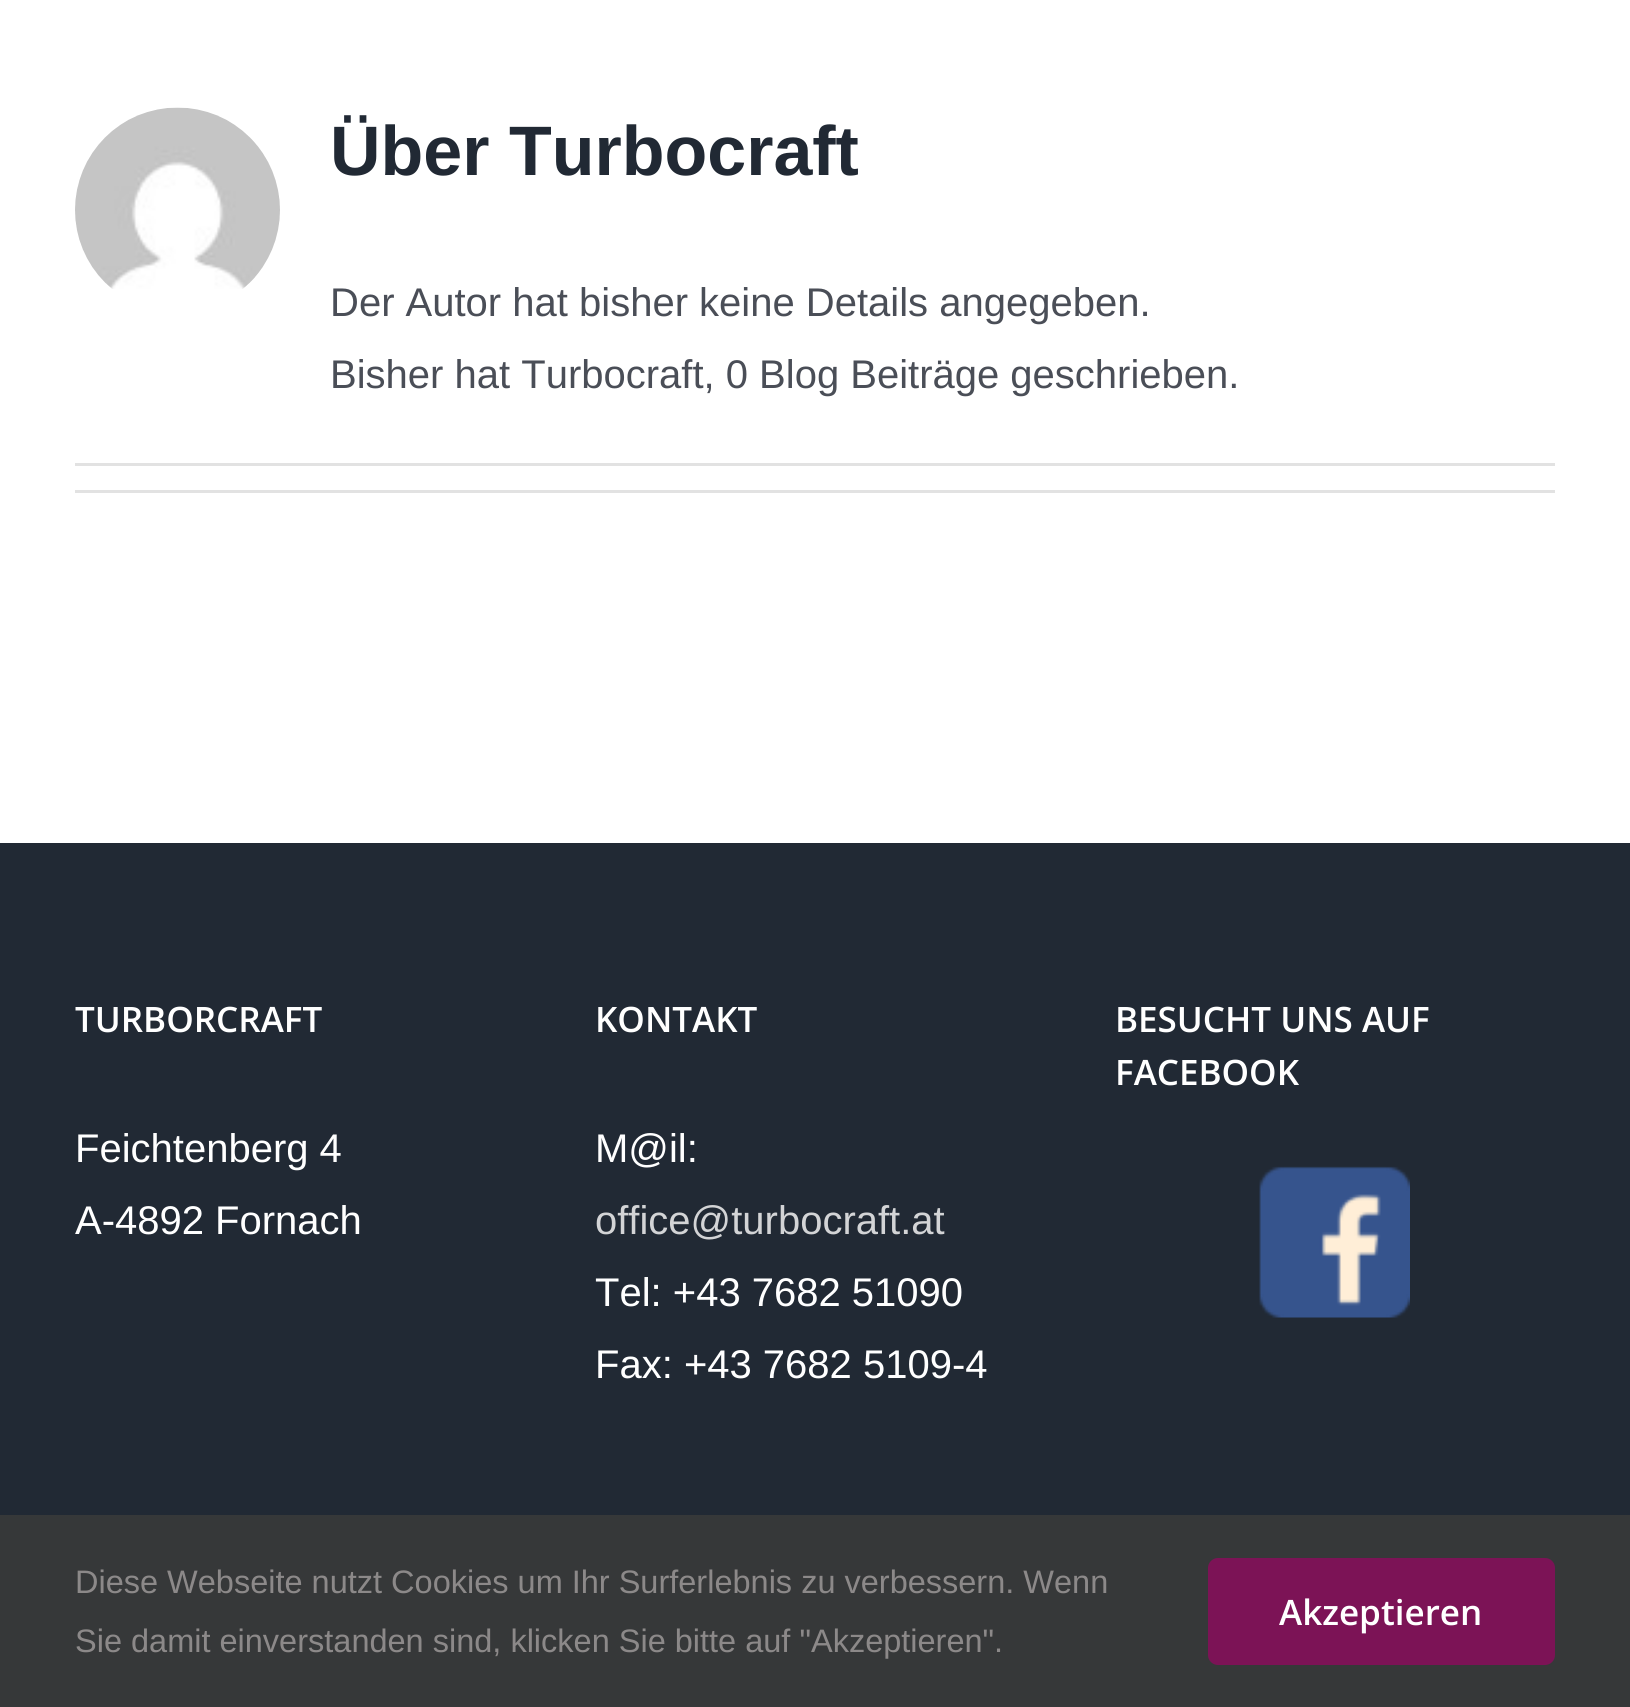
import math
import cairo


def round_path(ctx, x, y, w, h, r):
	ctx.new_sub_path()
	for i, (u, v) in enumerate([(x + w - r, y + h - r), (x + r, y + h - r), (x + r, y + r), (x + w - r, y + r)]):
		ctx.arc(u, v, r, i * math.pi / 2, (i + 1) * math.pi / 2)
	ctx.close_path()

def paste(ctx, path, x, y, w, h):
	ctx.save()
	ctx.set_source_surface(cairo.ImageSurface.create_from_png(path), x, y)
	ctx.rectangle(x, y, w, h)
	ctx.fill()
	ctx.restore()

def draw(ctx):
	ctx.set_source_rgb(1, 1, 1)
	ctx.paint()
	paste(ctx, 'media/1.png', 75, 107, 205, 182)
	ctx.select_font_face('Liberation Sans', cairo.FONT_SLANT_NORMAL, cairo.FONT_WEIGHT_BOLD)
	ctx.set_font_size(70)
	ctx.set_source_rgb(0.129, 0.161, 0.204)
	ctx.move_to(330, 175)
	ctx.show_text('Über Turbocraft')
	ctx.select_font_face('Liberation Sans')
	ctx.set_font_size(40)
	ctx.set_source_rgb(0.29, 0.306, 0.341)
	ctx.move_to(330, 316)
	ctx.show_text('Der Autor hat bisher keine Details angegeben.')
	ctx.move_to(330, 388)
	ctx.show_text('Bisher hat Turbocraft, 0 Blog Beiträge geschrieben.')
	ctx.set_source_rgb(0.886, 0.886, 0.886)
	ctx.rectangle(75, 463, 1480, 3)
	ctx.rectangle(75, 490, 1480, 3)
	ctx.fill()
	ctx.set_source_rgb(0.129, 0.161, 0.204)
	ctx.rectangle(0, 843, 1630, 672)
	ctx.fill()
	ctx.select_font_face('Open Sans SemiBold')
	ctx.set_font_size(35)
	ctx.set_source_rgb(1, 1, 1)
	ctx.move_to(75, 1032)
	ctx.show_text('TURBORCRAFT')
	ctx.select_font_face('Liberation Sans')
	ctx.set_font_size(40)
	ctx.move_to(75, 1162)
	ctx.show_text('Feichtenberg 4')
	ctx.move_to(75, 1234)
	ctx.show_text('A-4892 Fornach')
	ctx.select_font_face('Open Sans SemiBold')
	ctx.set_font_size(35)
	ctx.move_to(595, 1032)
	ctx.show_text('KONTAKT')
	ctx.select_font_face('Liberation Sans')
	ctx.set_font_size(40)
	ctx.move_to(595, 1162)
	ctx.show_text('M@il:')
	ctx.set_source_rgb(0.827, 0.831, 0.839)
	ctx.move_to(595, 1234)
	ctx.show_text('office@turbocraft.at')
	ctx.set_source_rgb(1, 1, 1)
	ctx.move_to(595, 1306)
	ctx.show_text('Tel: +43 7682 51090')
	ctx.move_to(595, 1378)
	ctx.show_text('Fax: +43 7682 5109-4')
	ctx.select_font_face('Open Sans SemiBold')
	ctx.set_font_size(35)
	ctx.move_to(1115, 1032)
	ctx.show_text('BESUCHT UNS AUF')
	ctx.move_to(1115, 1085)
	ctx.show_text('FACEBOOK')
	paste(ctx, 'media/2.png', 1259, 1166, 151, 152)
	ctx.set_source_rgb(0.212, 0.22, 0.224)
	ctx.rectangle(0, 1515, 1630, 192)
	ctx.fill()
	ctx.select_font_face('Liberation Sans')
	ctx.set_font_size(32.5)
	ctx.set_source_rgb(0.549, 0.537, 0.537)
	ctx.move_to(75, 1593)
	ctx.show_text('Diese Webseite nutzt Cookies um Ihr Surferlebnis zu verbessern. Wenn')
	ctx.move_to(75, 1652)
	ctx.show_text('Sie damit einverstanden sind, klicken Sie bitte auf "Akzeptieren".')
	ctx.set_source_rgb(0.486, 0.075, 0.337)
	round_path(ctx, 1208, 1558, 347, 107, 10)
	ctx.fill()
	ctx.select_font_face('Open Sans SemiBold')
	ctx.set_font_size(35)
	ctx.set_source_rgb(1, 1, 1)
	ctx.move_to(1279, 1625)
	ctx.show_text('Akzeptieren')


surface = cairo.ImageSurface(cairo.FORMAT_RGB24, 1630, 1707)
ctx = cairo.Context(surface)
options = cairo.FontOptions()
options.set_hint_metrics(cairo.HINT_METRICS_OFF)
options.set_hint_style(cairo.HINT_STYLE_NONE)
ctx.set_font_options(options)
ctx.set_miter_limit(4)
draw(ctx)
surface.write_to_png('image.png')
